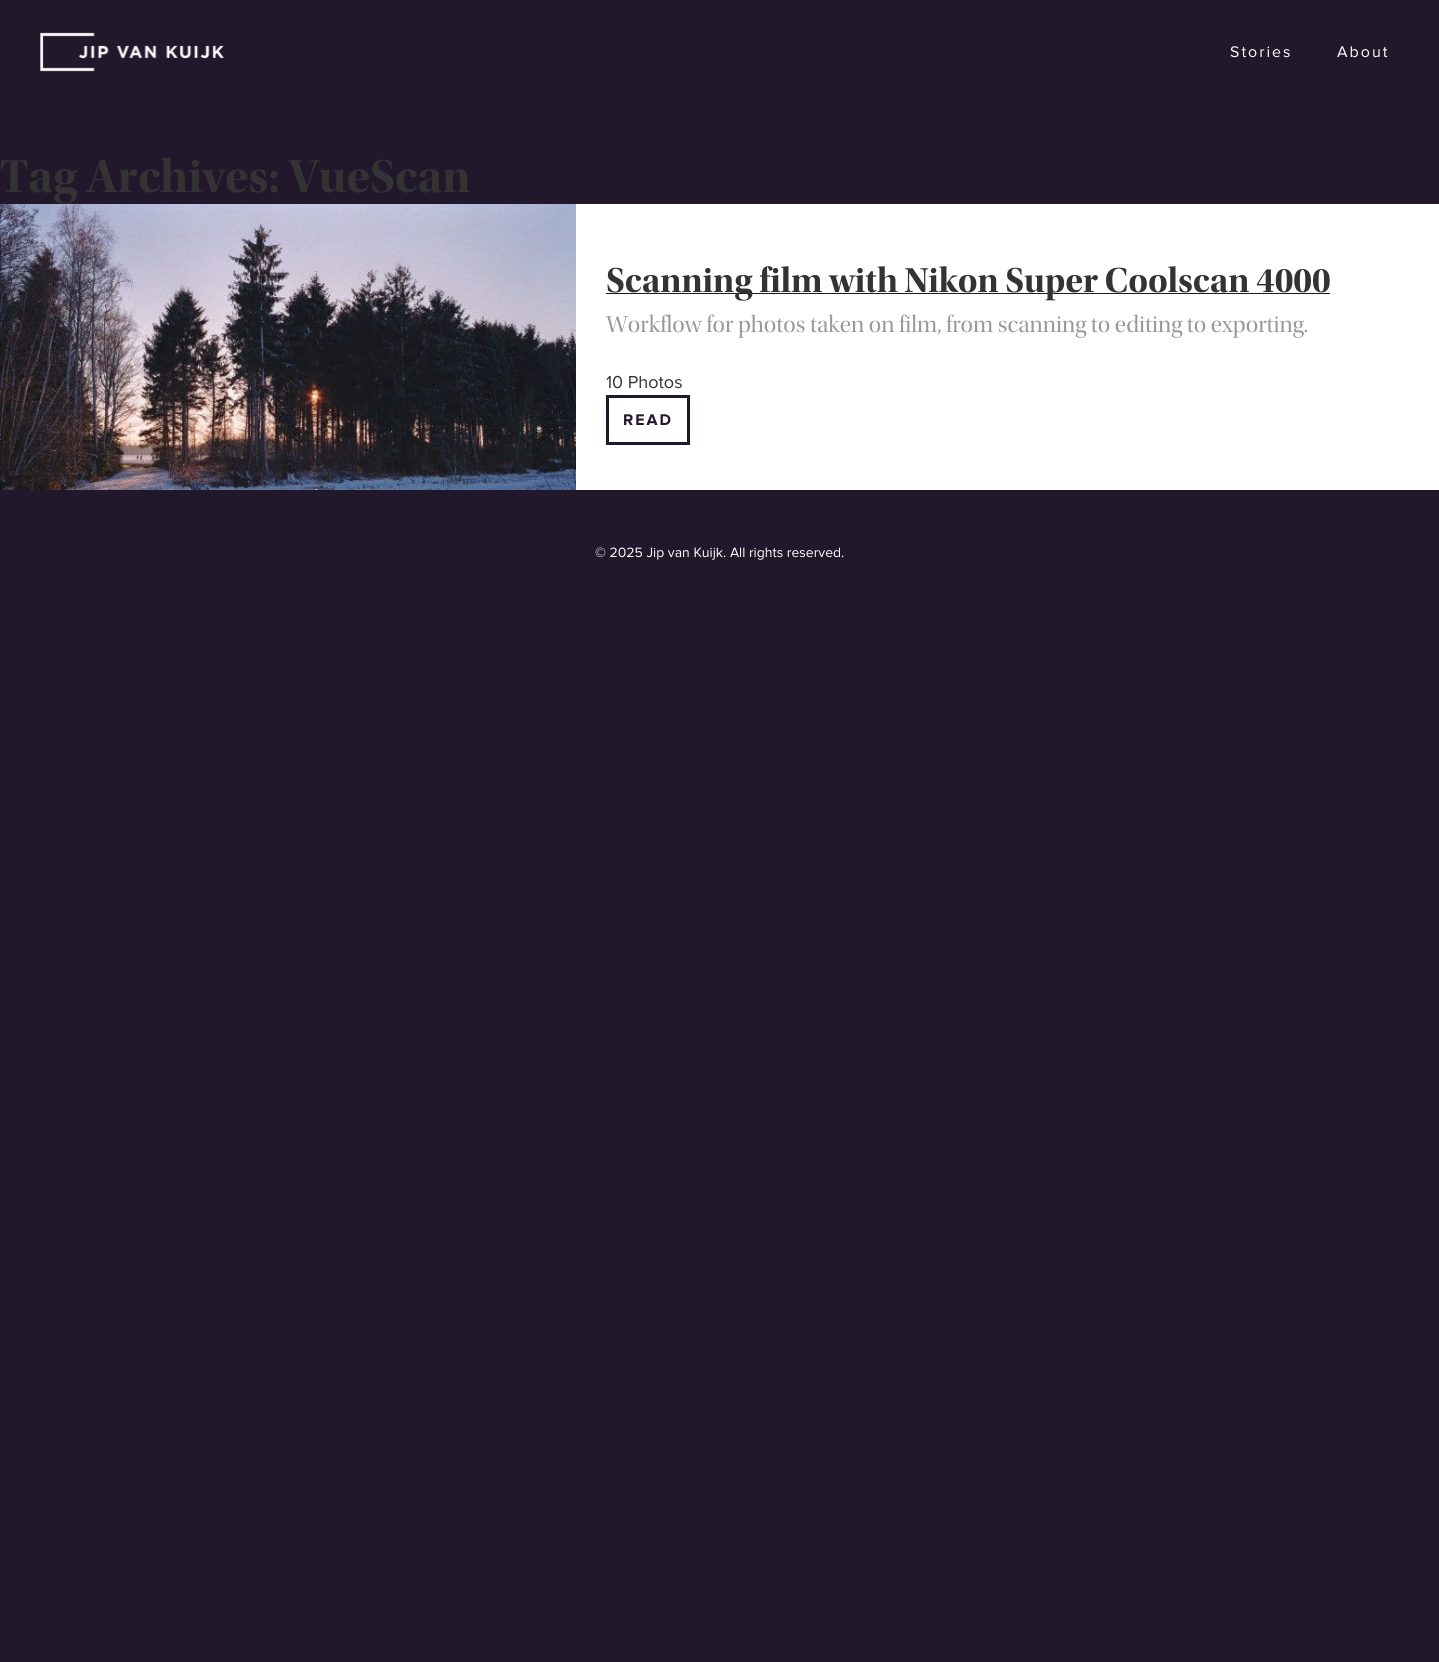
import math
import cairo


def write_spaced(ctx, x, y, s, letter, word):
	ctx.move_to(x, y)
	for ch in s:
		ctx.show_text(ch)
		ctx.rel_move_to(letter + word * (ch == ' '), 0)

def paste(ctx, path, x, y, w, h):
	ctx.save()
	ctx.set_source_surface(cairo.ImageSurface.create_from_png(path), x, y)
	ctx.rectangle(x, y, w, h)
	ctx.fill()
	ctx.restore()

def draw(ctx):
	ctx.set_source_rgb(0.129, 0.094, 0.173)
	ctx.paint()
	paste(ctx, 'media/1.png', 40, 32, 184, 40)
	ctx.select_font_face('Proxima Nova')
	ctx.set_font_size(16)
	ctx.set_source_rgb(1, 1, 1)
	write_spaced(ctx, 1230, 57, 'Stories', 2, 0)
	write_spaced(ctx, 1337, 57, 'About', 2, 0)
	ctx.select_font_face('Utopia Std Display', cairo.FONT_SLANT_NORMAL, cairo.FONT_WEIGHT_BOLD)
	ctx.set_font_size(48)
	ctx.set_source_rgb(0.2, 0.2, 0.2)
	ctx.move_to(0, 192)
	ctx.show_text('Tag Archives: VueScan')
	paste(ctx, 'media/2.png', 0, 204, 576, 286)
	ctx.set_source_rgb(1, 1, 1)
	ctx.rectangle(576, 204, 863, 286)
	ctx.fill()
	ctx.set_source_rgb(0, 0, 0.933)
	ctx.rectangle(606, 293, 724, 1)
	ctx.fill()
	ctx.set_font_size(36)
	ctx.set_source_rgb(0.2, 0.2, 0.2)
	ctx.move_to(606, 292)
	ctx.show_text('Scanning film with Nikon Super Coolscan 4000')
	ctx.select_font_face('Utopia Std Display')
	ctx.set_font_size(24)
	ctx.set_source_rgb(0.6, 0.6, 0.6)
	ctx.move_to(606, 332)
	ctx.show_text('Workflow for photos taken on film, from scanning to editing to exporting.')
	ctx.select_font_face('Proxima Nova')
	ctx.set_font_size(18)
	ctx.set_source_rgb(0.2, 0.2, 0.2)
	ctx.move_to(606, 388)
	ctx.show_text('10 Photos')
	ctx.rectangle(607.5, 396.5, 81, 47)
	ctx.set_source_rgb(0.129, 0.094, 0.173)
	ctx.set_line_width(3)
	ctx.stroke()
	ctx.select_font_face('Proxima Nova', cairo.FONT_SLANT_NORMAL, cairo.FONT_WEIGHT_BOLD)
	ctx.set_font_size(16)
	write_spaced(ctx, 623, 425, 'READ', 2, 0)
	ctx.select_font_face('Proxima Nova')
	ctx.set_font_size(14)
	ctx.set_source_rgb(1, 1, 1)
	ctx.move_to(595, 557)
	ctx.show_text('© 2025 Jip van Kuijk. All rights reserved.')


surface = cairo.ImageSurface(cairo.FORMAT_RGB24, 1439, 1662)
ctx = cairo.Context(surface)
options = cairo.FontOptions()
options.set_hint_metrics(cairo.HINT_METRICS_OFF)
options.set_hint_style(cairo.HINT_STYLE_NONE)
ctx.set_font_options(options)
ctx.set_miter_limit(4)
draw(ctx)
surface.write_to_png('image.png')
